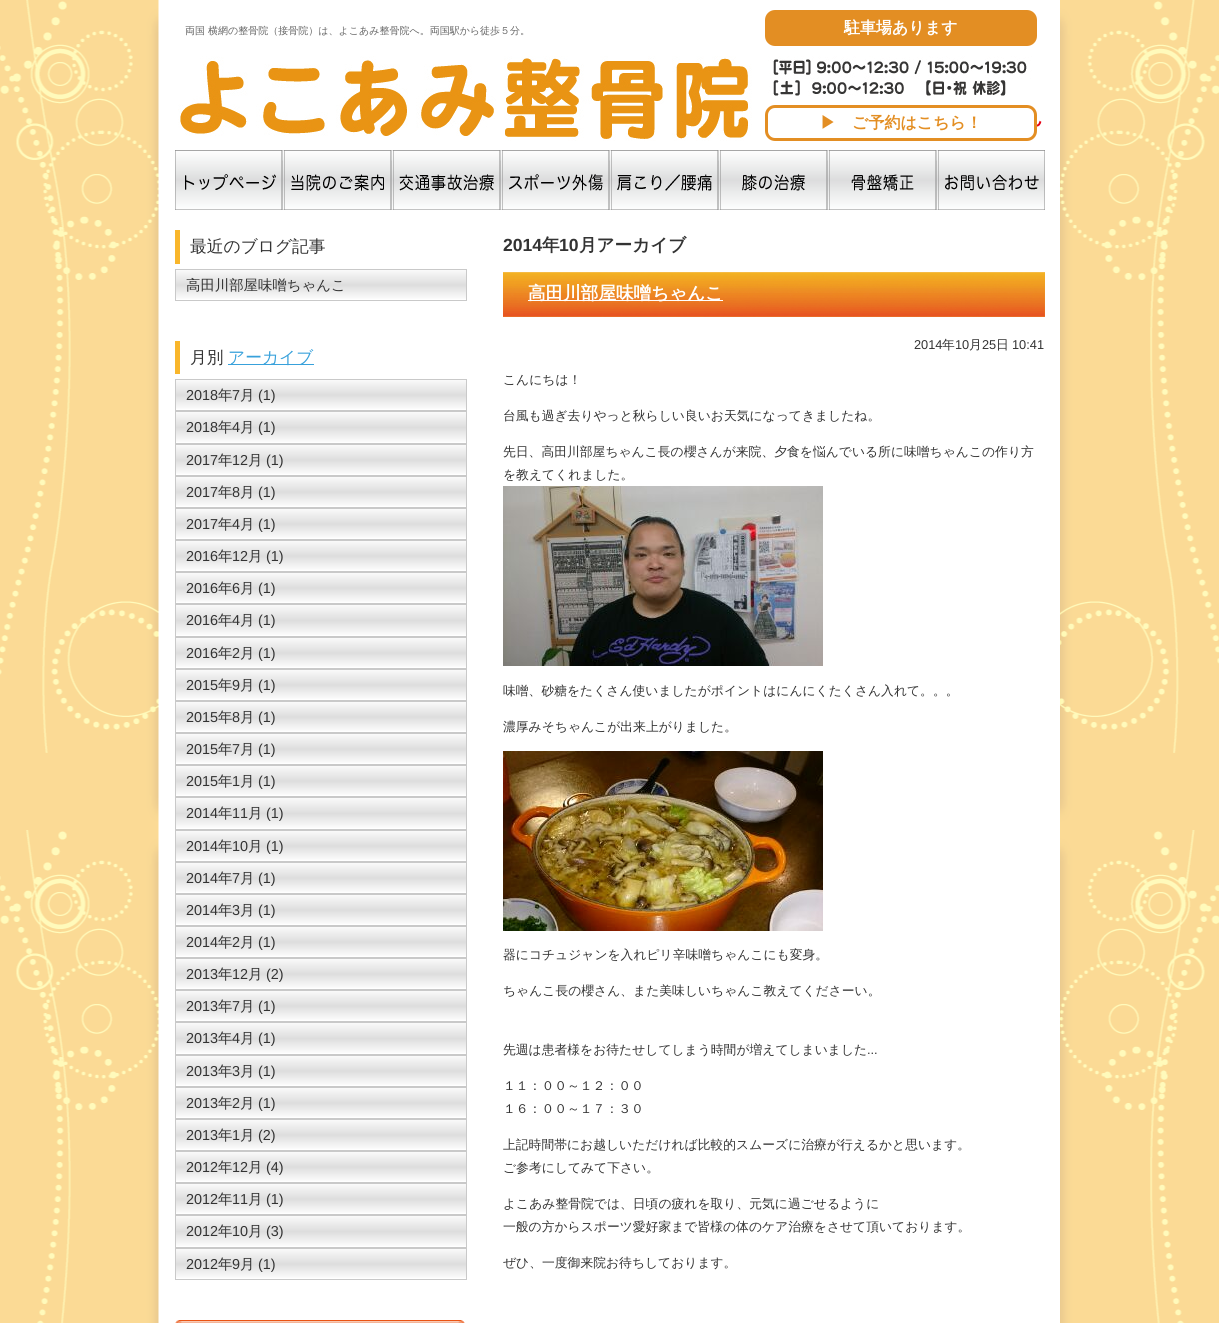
import math
import cairo


def round_path(ctx, x, y, w, h, r):
	ctx.new_sub_path()
	for i, (u, v) in enumerate([(x + w - r, y + h - r), (x + r, y + h - r), (x + r, y + r), (x + w - r, y + r)]):
		ctx.arc(u, v, r, i * math.pi / 2, (i + 1) * math.pi / 2)
	ctx.close_path()

def paste(ctx, path, x, y, w, h):
	ctx.save()
	ctx.set_source_surface(cairo.ImageSurface.create_from_png(path), x, y)
	ctx.rectangle(x, y, w, h)
	ctx.fill()
	ctx.restore()

def draw(ctx):
	ctx.set_source_rgb(1, 1, 1)
	ctx.paint()
	paste(ctx, 'media/1.png', 0, 0, 1219, 1323)
	ctx.set_source_rgb(1, 1, 1)
	ctx.rectangle(1058, 0, 2, 1323)
	ctx.fill()
	paste(ctx, 'media/2.png', 178, 56, 864, 85)
	ctx.select_font_face('WenQuanYi Zen Hei Medium')
	ctx.set_font_size(10)
	ctx.set_source_rgb(0.4, 0.4, 0.4)
	ctx.move_to(185, 34)
	ctx.show_text('両国 横網の整骨院（接骨院）は、よこあみ整骨院へ。両国駅から徒歩５分。')
	ctx.set_source_rgb(0.89, 0.557, 0.137)
	round_path(ctx, 766.5, 11.5, 269, 33, 8.5)
	ctx.fill_preserve()
	ctx.set_line_width(3)
	ctx.stroke()
	ctx.select_font_face('WenQuanYi Zen Hei', cairo.FONT_SLANT_NORMAL, cairo.FONT_WEIGHT_BOLD)
	ctx.set_font_size(16)
	ctx.set_source_rgb(1, 1, 1)
	ctx.move_to(844, 33)
	ctx.show_text('駐車場あります')
	round_path(ctx, 766.5, 106.5, 269, 33, 8.5)
	ctx.fill_preserve()
	ctx.set_source_rgb(0.89, 0.557, 0.137)
	ctx.stroke()
	ctx.move_to(820, 128)
	ctx.show_text('▶　ご予約はこちら！')
	paste(ctx, 'media/3.png', 282, 150, 656, 60)
	paste(ctx, 'media/4.png', 175, 150, 107, 60)
	paste(ctx, 'media/5.png', 284, 150, 107, 60)
	paste(ctx, 'media/6.png', 393, 150, 107, 60)
	paste(ctx, 'media/7.png', 502, 150, 107, 60)
	paste(ctx, 'media/8.png', 611, 150, 107, 60)
	paste(ctx, 'media/9.png', 720, 150, 107, 60)
	paste(ctx, 'media/10.png', 829, 150, 107, 60)
	paste(ctx, 'media/11.png', 938, 150, 107, 60)
	ctx.set_source_rgb(0.973, 0.714, 0.169)
	ctx.rectangle(175, 230, 5, 34)
	ctx.fill()
	ctx.select_font_face('WenQuanYi Zen Hei Medium')
	ctx.set_font_size(16.75)
	ctx.set_source_rgb(0.2, 0.2, 0.2)
	ctx.move_to(190, 252)
	ctx.show_text('最近のブログ記事')
	gradient = cairo.LinearGradient(176, 270, 176, 300)
	gradient.add_color_stop_rgba(0, 0.98, 0.98, 0.98, 1)
	gradient.add_color_stop_rgba(0.5, 0.867, 0.867, 0.867, 1)
	gradient.add_color_stop_rgba(1, 0.996, 0.996, 0.996, 1)
	ctx.set_source(gradient)
	ctx.rectangle(176, 270, 290, 29)
	ctx.fill()
	ctx.rectangle(175.5, 269.5, 291, 31)
	ctx.set_source_rgb(0.788, 0.788, 0.788)
	ctx.set_line_width(1)
	ctx.stroke()
	ctx.set_font_size(14.4)
	ctx.set_source_rgb(0.2, 0.2, 0.2)
	ctx.move_to(186, 290)
	ctx.show_text('高田川部屋味噌ちゃんこ')
	ctx.set_source_rgb(0.973, 0.714, 0.169)
	ctx.rectangle(175, 341, 5, 33)
	ctx.fill()
	ctx.set_font_size(16.75)
	ctx.set_source_rgb(0.2, 0.2, 0.2)
	ctx.move_to(190, 363)
	ctx.show_text('月別')
	ctx.set_source_rgb(0.22, 0.631, 0.859)
	ctx.rectangle(228, 364, 86, 1)
	ctx.fill()
	ctx.move_to(228, 363)
	ctx.show_text('アーカイブ')
	gradient = cairo.LinearGradient(176, 380, 176, 410)
	gradient.add_color_stop_rgba(0, 0.98, 0.98, 0.98, 1)
	gradient.add_color_stop_rgba(0.5, 0.867, 0.867, 0.867, 1)
	gradient.add_color_stop_rgba(1, 0.996, 0.996, 0.996, 1)
	ctx.set_source(gradient)
	ctx.rectangle(176, 380, 290, 29)
	ctx.fill()
	ctx.rectangle(175.5, 379.5, 291, 31)
	ctx.set_source_rgb(0.788, 0.788, 0.788)
	ctx.stroke()
	ctx.select_font_face('Liberation Sans')
	ctx.set_font_size(14.4)
	ctx.set_source_rgb(0.2, 0.2, 0.2)
	ctx.move_to(186, 400)
	ctx.show_text('2018')
	ctx.select_font_face('WenQuanYi Zen Hei Medium')
	ctx.move_to(218, 400)
	ctx.show_text('年')
	ctx.select_font_face('Liberation Sans')
	ctx.move_to(232, 400)
	ctx.show_text('7')
	ctx.select_font_face('WenQuanYi Zen Hei Medium')
	ctx.move_to(240, 400)
	ctx.show_text('月')
	ctx.select_font_face('Liberation Sans')
	ctx.move_to(258, 400)
	ctx.show_text('(1)')
	gradient = cairo.LinearGradient(176, 412, 176, 443)
	gradient.add_color_stop_rgba(0, 0.98, 0.98, 0.98, 1)
	gradient.add_color_stop_rgba(0.5, 0.867, 0.867, 0.867, 1)
	gradient.add_color_stop_rgba(1, 0.996, 0.996, 0.996, 1)
	ctx.set_source(gradient)
	ctx.rectangle(176, 412, 290, 30)
	ctx.fill()
	ctx.rectangle(175.5, 411.5, 291, 32)
	ctx.set_source_rgb(0.788, 0.788, 0.788)
	ctx.stroke()
	ctx.set_source_rgb(0.2, 0.2, 0.2)
	ctx.move_to(186, 432)
	ctx.show_text('2018')
	ctx.select_font_face('WenQuanYi Zen Hei Medium')
	ctx.move_to(218, 432)
	ctx.show_text('年')
	ctx.select_font_face('Liberation Sans')
	ctx.move_to(232, 432)
	ctx.show_text('4')
	ctx.select_font_face('WenQuanYi Zen Hei Medium')
	ctx.move_to(240, 432)
	ctx.show_text('月')
	ctx.select_font_face('Liberation Sans')
	ctx.move_to(258, 432)
	ctx.show_text('(1)')
	gradient = cairo.LinearGradient(176, 445, 176, 475)
	gradient.add_color_stop_rgba(0, 0.98, 0.98, 0.98, 1)
	gradient.add_color_stop_rgba(0.5, 0.867, 0.867, 0.867, 1)
	gradient.add_color_stop_rgba(1, 0.996, 0.996, 0.996, 1)
	ctx.set_source(gradient)
	ctx.rectangle(176, 445, 290, 29)
	ctx.fill()
	ctx.rectangle(175.5, 444.5, 291, 31)
	ctx.set_source_rgb(0.788, 0.788, 0.788)
	ctx.stroke()
	ctx.set_source_rgb(0.2, 0.2, 0.2)
	ctx.move_to(186, 465)
	ctx.show_text('2017')
	ctx.select_font_face('WenQuanYi Zen Hei Medium')
	ctx.move_to(218, 465)
	ctx.show_text('年')
	ctx.select_font_face('Liberation Sans')
	ctx.move_to(232, 465)
	ctx.show_text('12')
	ctx.select_font_face('WenQuanYi Zen Hei Medium')
	ctx.move_to(248, 465)
	ctx.show_text('月')
	ctx.select_font_face('Liberation Sans')
	ctx.move_to(266, 465)
	ctx.show_text('(1)')
	gradient = cairo.LinearGradient(176, 477, 176, 507)
	gradient.add_color_stop_rgba(0, 0.98, 0.98, 0.98, 1)
	gradient.add_color_stop_rgba(0.5, 0.867, 0.867, 0.867, 1)
	gradient.add_color_stop_rgba(1, 0.996, 0.996, 0.996, 1)
	ctx.set_source(gradient)
	ctx.rectangle(176, 477, 290, 29)
	ctx.fill()
	ctx.rectangle(175.5, 476.5, 291, 31)
	ctx.set_source_rgb(0.788, 0.788, 0.788)
	ctx.stroke()
	ctx.set_source_rgb(0.2, 0.2, 0.2)
	ctx.move_to(186, 497)
	ctx.show_text('2017')
	ctx.select_font_face('WenQuanYi Zen Hei Medium')
	ctx.move_to(218, 497)
	ctx.show_text('年')
	ctx.select_font_face('Liberation Sans')
	ctx.move_to(232, 497)
	ctx.show_text('8')
	ctx.select_font_face('WenQuanYi Zen Hei Medium')
	ctx.move_to(240, 497)
	ctx.show_text('月')
	ctx.select_font_face('Liberation Sans')
	ctx.move_to(258, 497)
	ctx.show_text('(1)')
	gradient = cairo.LinearGradient(176, 509, 176, 539)
	gradient.add_color_stop_rgba(0, 0.98, 0.98, 0.98, 1)
	gradient.add_color_stop_rgba(0.5, 0.867, 0.867, 0.867, 1)
	gradient.add_color_stop_rgba(1, 0.996, 0.996, 0.996, 1)
	ctx.set_source(gradient)
	ctx.rectangle(176, 509, 290, 29)
	ctx.fill()
	ctx.rectangle(175.5, 508.5, 291, 31)
	ctx.set_source_rgb(0.788, 0.788, 0.788)
	ctx.stroke()
	ctx.set_source_rgb(0.2, 0.2, 0.2)
	ctx.move_to(186, 529)
	ctx.show_text('2017')
	ctx.select_font_face('WenQuanYi Zen Hei Medium')
	ctx.move_to(218, 529)
	ctx.show_text('年')
	ctx.select_font_face('Liberation Sans')
	ctx.move_to(232, 529)
	ctx.show_text('4')
	ctx.select_font_face('WenQuanYi Zen Hei Medium')
	ctx.move_to(240, 529)
	ctx.show_text('月')
	ctx.select_font_face('Liberation Sans')
	ctx.move_to(258, 529)
	ctx.show_text('(1)')
	gradient = cairo.LinearGradient(176, 541, 176, 571)
	gradient.add_color_stop_rgba(0, 0.98, 0.98, 0.98, 1)
	gradient.add_color_stop_rgba(0.5, 0.867, 0.867, 0.867, 1)
	gradient.add_color_stop_rgba(1, 0.996, 0.996, 0.996, 1)
	ctx.set_source(gradient)
	ctx.rectangle(176, 541, 290, 29)
	ctx.fill()
	ctx.rectangle(175.5, 540.5, 291, 31)
	ctx.set_source_rgb(0.788, 0.788, 0.788)
	ctx.stroke()
	ctx.set_source_rgb(0.2, 0.2, 0.2)
	ctx.move_to(186, 561)
	ctx.show_text('2016')
	ctx.select_font_face('WenQuanYi Zen Hei Medium')
	ctx.move_to(218, 561)
	ctx.show_text('年')
	ctx.select_font_face('Liberation Sans')
	ctx.move_to(232, 561)
	ctx.show_text('12')
	ctx.select_font_face('WenQuanYi Zen Hei Medium')
	ctx.move_to(248, 561)
	ctx.show_text('月')
	ctx.select_font_face('Liberation Sans')
	ctx.move_to(266, 561)
	ctx.show_text('(1)')
	gradient = cairo.LinearGradient(176, 573, 176, 603)
	gradient.add_color_stop_rgba(0, 0.98, 0.98, 0.98, 1)
	gradient.add_color_stop_rgba(0.5, 0.867, 0.867, 0.867, 1)
	gradient.add_color_stop_rgba(1, 0.996, 0.996, 0.996, 1)
	ctx.set_source(gradient)
	ctx.rectangle(176, 573, 290, 29)
	ctx.fill()
	ctx.rectangle(175.5, 572.5, 291, 31)
	ctx.set_source_rgb(0.788, 0.788, 0.788)
	ctx.stroke()
	ctx.set_source_rgb(0.2, 0.2, 0.2)
	ctx.move_to(186, 593)
	ctx.show_text('2016')
	ctx.select_font_face('WenQuanYi Zen Hei Medium')
	ctx.move_to(218, 593)
	ctx.show_text('年')
	ctx.select_font_face('Liberation Sans')
	ctx.move_to(232, 593)
	ctx.show_text('6')
	ctx.select_font_face('WenQuanYi Zen Hei Medium')
	ctx.move_to(240, 593)
	ctx.show_text('月')
	ctx.select_font_face('Liberation Sans')
	ctx.move_to(258, 593)
	ctx.show_text('(1)')
	gradient = cairo.LinearGradient(176, 605, 176, 636)
	gradient.add_color_stop_rgba(0, 0.98, 0.98, 0.98, 1)
	gradient.add_color_stop_rgba(0.5, 0.867, 0.867, 0.867, 1)
	gradient.add_color_stop_rgba(1, 0.996, 0.996, 0.996, 1)
	ctx.set_source(gradient)
	ctx.rectangle(176, 605, 290, 30)
	ctx.fill()
	ctx.rectangle(175.5, 604.5, 291, 32)
	ctx.set_source_rgb(0.788, 0.788, 0.788)
	ctx.stroke()
	ctx.set_source_rgb(0.2, 0.2, 0.2)
	ctx.move_to(186, 625)
	ctx.show_text('2016')
	ctx.select_font_face('WenQuanYi Zen Hei Medium')
	ctx.move_to(218, 625)
	ctx.show_text('年')
	ctx.select_font_face('Liberation Sans')
	ctx.move_to(232, 625)
	ctx.show_text('4')
	ctx.select_font_face('WenQuanYi Zen Hei Medium')
	ctx.move_to(240, 625)
	ctx.show_text('月')
	ctx.select_font_face('Liberation Sans')
	ctx.move_to(258, 625)
	ctx.show_text('(1)')
	gradient = cairo.LinearGradient(176, 638, 176, 668)
	gradient.add_color_stop_rgba(0, 0.98, 0.98, 0.98, 1)
	gradient.add_color_stop_rgba(0.5, 0.867, 0.867, 0.867, 1)
	gradient.add_color_stop_rgba(1, 0.996, 0.996, 0.996, 1)
	ctx.set_source(gradient)
	ctx.rectangle(176, 638, 290, 29)
	ctx.fill()
	ctx.rectangle(175.5, 637.5, 291, 31)
	ctx.set_source_rgb(0.788, 0.788, 0.788)
	ctx.stroke()
	ctx.set_source_rgb(0.2, 0.2, 0.2)
	ctx.move_to(186, 658)
	ctx.show_text('2016')
	ctx.select_font_face('WenQuanYi Zen Hei Medium')
	ctx.move_to(218, 658)
	ctx.show_text('年')
	ctx.select_font_face('Liberation Sans')
	ctx.move_to(232, 658)
	ctx.show_text('2')
	ctx.select_font_face('WenQuanYi Zen Hei Medium')
	ctx.move_to(240, 658)
	ctx.show_text('月')
	ctx.select_font_face('Liberation Sans')
	ctx.move_to(258, 658)
	ctx.show_text('(1)')
	gradient = cairo.LinearGradient(176, 670, 176, 700)
	gradient.add_color_stop_rgba(0, 0.98, 0.98, 0.98, 1)
	gradient.add_color_stop_rgba(0.5, 0.867, 0.867, 0.867, 1)
	gradient.add_color_stop_rgba(1, 0.996, 0.996, 0.996, 1)
	ctx.set_source(gradient)
	ctx.rectangle(176, 670, 290, 29)
	ctx.fill()
	ctx.rectangle(175.5, 669.5, 291, 31)
	ctx.set_source_rgb(0.788, 0.788, 0.788)
	ctx.stroke()
	ctx.set_source_rgb(0.2, 0.2, 0.2)
	ctx.move_to(186, 690)
	ctx.show_text('2015')
	ctx.select_font_face('WenQuanYi Zen Hei Medium')
	ctx.move_to(218, 690)
	ctx.show_text('年')
	ctx.select_font_face('Liberation Sans')
	ctx.move_to(232, 690)
	ctx.show_text('9')
	ctx.select_font_face('WenQuanYi Zen Hei Medium')
	ctx.move_to(240, 690)
	ctx.show_text('月')
	ctx.select_font_face('Liberation Sans')
	ctx.move_to(258, 690)
	ctx.show_text('(1)')
	gradient = cairo.LinearGradient(176, 702, 176, 732)
	gradient.add_color_stop_rgba(0, 0.98, 0.98, 0.98, 1)
	gradient.add_color_stop_rgba(0.5, 0.867, 0.867, 0.867, 1)
	gradient.add_color_stop_rgba(1, 0.996, 0.996, 0.996, 1)
	ctx.set_source(gradient)
	ctx.rectangle(176, 702, 290, 29)
	ctx.fill()
	ctx.rectangle(175.5, 701.5, 291, 31)
	ctx.set_source_rgb(0.788, 0.788, 0.788)
	ctx.stroke()
	ctx.set_source_rgb(0.2, 0.2, 0.2)
	ctx.move_to(186, 722)
	ctx.show_text('2015')
	ctx.select_font_face('WenQuanYi Zen Hei Medium')
	ctx.move_to(218, 722)
	ctx.show_text('年')
	ctx.select_font_face('Liberation Sans')
	ctx.move_to(232, 722)
	ctx.show_text('8')
	ctx.select_font_face('WenQuanYi Zen Hei Medium')
	ctx.move_to(240, 722)
	ctx.show_text('月')
	ctx.select_font_face('Liberation Sans')
	ctx.move_to(258, 722)
	ctx.show_text('(1)')
	gradient = cairo.LinearGradient(176, 734, 176, 764)
	gradient.add_color_stop_rgba(0, 0.98, 0.98, 0.98, 1)
	gradient.add_color_stop_rgba(0.5, 0.867, 0.867, 0.867, 1)
	gradient.add_color_stop_rgba(1, 0.996, 0.996, 0.996, 1)
	ctx.set_source(gradient)
	ctx.rectangle(176, 734, 290, 29)
	ctx.fill()
	ctx.rectangle(175.5, 733.5, 291, 31)
	ctx.set_source_rgb(0.788, 0.788, 0.788)
	ctx.stroke()
	ctx.set_source_rgb(0.2, 0.2, 0.2)
	ctx.move_to(186, 754)
	ctx.show_text('2015')
	ctx.select_font_face('WenQuanYi Zen Hei Medium')
	ctx.move_to(218, 754)
	ctx.show_text('年')
	ctx.select_font_face('Liberation Sans')
	ctx.move_to(232, 754)
	ctx.show_text('7')
	ctx.select_font_face('WenQuanYi Zen Hei Medium')
	ctx.move_to(240, 754)
	ctx.show_text('月')
	ctx.select_font_face('Liberation Sans')
	ctx.move_to(258, 754)
	ctx.show_text('(1)')
	gradient = cairo.LinearGradient(176, 766, 176, 796)
	gradient.add_color_stop_rgba(0, 0.98, 0.98, 0.98, 1)
	gradient.add_color_stop_rgba(0.5, 0.867, 0.867, 0.867, 1)
	gradient.add_color_stop_rgba(1, 0.996, 0.996, 0.996, 1)
	ctx.set_source(gradient)
	ctx.rectangle(176, 766, 290, 29)
	ctx.fill()
	ctx.rectangle(175.5, 765.5, 291, 31)
	ctx.set_source_rgb(0.788, 0.788, 0.788)
	ctx.stroke()
	ctx.set_source_rgb(0.2, 0.2, 0.2)
	ctx.move_to(186, 786)
	ctx.show_text('2015')
	ctx.select_font_face('WenQuanYi Zen Hei Medium')
	ctx.move_to(218, 786)
	ctx.show_text('年')
	ctx.select_font_face('Liberation Sans')
	ctx.move_to(232, 786)
	ctx.show_text('1')
	ctx.select_font_face('WenQuanYi Zen Hei Medium')
	ctx.move_to(240, 786)
	ctx.show_text('月')
	ctx.select_font_face('Liberation Sans')
	ctx.move_to(258, 786)
	ctx.show_text('(1)')
	gradient = cairo.LinearGradient(176, 798, 176, 829)
	gradient.add_color_stop_rgba(0, 0.98, 0.98, 0.98, 1)
	gradient.add_color_stop_rgba(0.5, 0.867, 0.867, 0.867, 1)
	gradient.add_color_stop_rgba(1, 0.996, 0.996, 0.996, 1)
	ctx.set_source(gradient)
	ctx.rectangle(176, 798, 290, 30)
	ctx.fill()
	ctx.rectangle(175.5, 797.5, 291, 32)
	ctx.set_source_rgb(0.788, 0.788, 0.788)
	ctx.stroke()
	ctx.set_source_rgb(0.2, 0.2, 0.2)
	ctx.move_to(186, 818)
	ctx.show_text('2014')
	ctx.select_font_face('WenQuanYi Zen Hei Medium')
	ctx.move_to(218, 818)
	ctx.show_text('年')
	ctx.select_font_face('Liberation Sans')
	ctx.move_to(232, 818)
	ctx.show_text('11')
	ctx.select_font_face('WenQuanYi Zen Hei Medium')
	ctx.move_to(248, 818)
	ctx.show_text('月')
	ctx.select_font_face('Liberation Sans')
	ctx.move_to(266, 818)
	ctx.show_text('(1)')
	gradient = cairo.LinearGradient(176, 831, 176, 861)
	gradient.add_color_stop_rgba(0, 0.98, 0.98, 0.98, 1)
	gradient.add_color_stop_rgba(0.5, 0.867, 0.867, 0.867, 1)
	gradient.add_color_stop_rgba(1, 0.996, 0.996, 0.996, 1)
	ctx.set_source(gradient)
	ctx.rectangle(176, 831, 290, 29)
	ctx.fill()
	ctx.rectangle(175.5, 830.5, 291, 31)
	ctx.set_source_rgb(0.788, 0.788, 0.788)
	ctx.stroke()
	ctx.set_source_rgb(0.2, 0.2, 0.2)
	ctx.move_to(186, 851)
	ctx.show_text('2014')
	ctx.select_font_face('WenQuanYi Zen Hei Medium')
	ctx.move_to(218, 851)
	ctx.show_text('年')
	ctx.select_font_face('Liberation Sans')
	ctx.move_to(232, 851)
	ctx.show_text('10')
	ctx.select_font_face('WenQuanYi Zen Hei Medium')
	ctx.move_to(248, 851)
	ctx.show_text('月')
	ctx.select_font_face('Liberation Sans')
	ctx.move_to(266, 851)
	ctx.show_text('(1)')
	gradient = cairo.LinearGradient(176, 863, 176, 893)
	gradient.add_color_stop_rgba(0, 0.98, 0.98, 0.98, 1)
	gradient.add_color_stop_rgba(0.5, 0.867, 0.867, 0.867, 1)
	gradient.add_color_stop_rgba(1, 0.996, 0.996, 0.996, 1)
	ctx.set_source(gradient)
	ctx.rectangle(176, 863, 290, 29)
	ctx.fill()
	ctx.rectangle(175.5, 862.5, 291, 31)
	ctx.set_source_rgb(0.788, 0.788, 0.788)
	ctx.stroke()
	ctx.set_source_rgb(0.2, 0.2, 0.2)
	ctx.move_to(186, 883)
	ctx.show_text('2014')
	ctx.select_font_face('WenQuanYi Zen Hei Medium')
	ctx.move_to(218, 883)
	ctx.show_text('年')
	ctx.select_font_face('Liberation Sans')
	ctx.move_to(232, 883)
	ctx.show_text('7')
	ctx.select_font_face('WenQuanYi Zen Hei Medium')
	ctx.move_to(240, 883)
	ctx.show_text('月')
	ctx.select_font_face('Liberation Sans')
	ctx.move_to(258, 883)
	ctx.show_text('(1)')
	gradient = cairo.LinearGradient(176, 895, 176, 925)
	gradient.add_color_stop_rgba(0, 0.98, 0.98, 0.98, 1)
	gradient.add_color_stop_rgba(0.5, 0.867, 0.867, 0.867, 1)
	gradient.add_color_stop_rgba(1, 0.996, 0.996, 0.996, 1)
	ctx.set_source(gradient)
	ctx.rectangle(176, 895, 290, 29)
	ctx.fill()
	ctx.rectangle(175.5, 894.5, 291, 31)
	ctx.set_source_rgb(0.788, 0.788, 0.788)
	ctx.stroke()
	ctx.set_source_rgb(0.2, 0.2, 0.2)
	ctx.move_to(186, 915)
	ctx.show_text('2014')
	ctx.select_font_face('WenQuanYi Zen Hei Medium')
	ctx.move_to(218, 915)
	ctx.show_text('年')
	ctx.select_font_face('Liberation Sans')
	ctx.move_to(232, 915)
	ctx.show_text('3')
	ctx.select_font_face('WenQuanYi Zen Hei Medium')
	ctx.move_to(240, 915)
	ctx.show_text('月')
	ctx.select_font_face('Liberation Sans')
	ctx.move_to(258, 915)
	ctx.show_text('(1)')
	gradient = cairo.LinearGradient(176, 927, 176, 957)
	gradient.add_color_stop_rgba(0, 0.98, 0.98, 0.98, 1)
	gradient.add_color_stop_rgba(0.5, 0.867, 0.867, 0.867, 1)
	gradient.add_color_stop_rgba(1, 0.996, 0.996, 0.996, 1)
	ctx.set_source(gradient)
	ctx.rectangle(176, 927, 290, 29)
	ctx.fill()
	ctx.rectangle(175.5, 926.5, 291, 31)
	ctx.set_source_rgb(0.788, 0.788, 0.788)
	ctx.stroke()
	ctx.set_source_rgb(0.2, 0.2, 0.2)
	ctx.move_to(186, 947)
	ctx.show_text('2014')
	ctx.select_font_face('WenQuanYi Zen Hei Medium')
	ctx.move_to(218, 947)
	ctx.show_text('年')
	ctx.select_font_face('Liberation Sans')
	ctx.move_to(232, 947)
	ctx.show_text('2')
	ctx.select_font_face('WenQuanYi Zen Hei Medium')
	ctx.move_to(240, 947)
	ctx.show_text('月')
	ctx.select_font_face('Liberation Sans')
	ctx.move_to(258, 947)
	ctx.show_text('(1)')
	gradient = cairo.LinearGradient(176, 959, 176, 989)
	gradient.add_color_stop_rgba(0, 0.98, 0.98, 0.98, 1)
	gradient.add_color_stop_rgba(0.5, 0.867, 0.867, 0.867, 1)
	gradient.add_color_stop_rgba(1, 0.996, 0.996, 0.996, 1)
	ctx.set_source(gradient)
	ctx.rectangle(176, 959, 290, 29)
	ctx.fill()
	ctx.rectangle(175.5, 958.5, 291, 31)
	ctx.set_source_rgb(0.788, 0.788, 0.788)
	ctx.stroke()
	ctx.set_source_rgb(0.2, 0.2, 0.2)
	ctx.move_to(186, 979)
	ctx.show_text('2013')
	ctx.select_font_face('WenQuanYi Zen Hei Medium')
	ctx.move_to(218, 979)
	ctx.show_text('年')
	ctx.select_font_face('Liberation Sans')
	ctx.move_to(232, 979)
	ctx.show_text('12')
	ctx.select_font_face('WenQuanYi Zen Hei Medium')
	ctx.move_to(248, 979)
	ctx.show_text('月')
	ctx.select_font_face('Liberation Sans')
	ctx.move_to(266, 979)
	ctx.show_text('(2)')
	gradient = cairo.LinearGradient(176, 991, 176, 1021)
	gradient.add_color_stop_rgba(0, 0.98, 0.98, 0.98, 1)
	gradient.add_color_stop_rgba(0.5, 0.867, 0.867, 0.867, 1)
	gradient.add_color_stop_rgba(1, 0.996, 0.996, 0.996, 1)
	ctx.set_source(gradient)
	ctx.rectangle(176, 991, 290, 29)
	ctx.fill()
	ctx.rectangle(175.5, 990.5, 291, 31)
	ctx.set_source_rgb(0.788, 0.788, 0.788)
	ctx.stroke()
	ctx.set_source_rgb(0.2, 0.2, 0.2)
	ctx.move_to(186, 1011)
	ctx.show_text('2013')
	ctx.select_font_face('WenQuanYi Zen Hei Medium')
	ctx.move_to(218, 1011)
	ctx.show_text('年')
	ctx.select_font_face('Liberation Sans')
	ctx.move_to(232, 1011)
	ctx.show_text('7')
	ctx.select_font_face('WenQuanYi Zen Hei Medium')
	ctx.move_to(240, 1011)
	ctx.show_text('月')
	ctx.select_font_face('Liberation Sans')
	ctx.move_to(258, 1011)
	ctx.show_text('(1)')
	gradient = cairo.LinearGradient(176, 1023, 176, 1054)
	gradient.add_color_stop_rgba(0, 0.98, 0.98, 0.98, 1)
	gradient.add_color_stop_rgba(0.5, 0.867, 0.867, 0.867, 1)
	gradient.add_color_stop_rgba(1, 0.996, 0.996, 0.996, 1)
	ctx.set_source(gradient)
	ctx.rectangle(176, 1023, 290, 30)
	ctx.fill()
	ctx.rectangle(175.5, 1022.5, 291, 32)
	ctx.set_source_rgb(0.788, 0.788, 0.788)
	ctx.stroke()
	ctx.set_source_rgb(0.2, 0.2, 0.2)
	ctx.move_to(186, 1043)
	ctx.show_text('2013')
	ctx.select_font_face('WenQuanYi Zen Hei Medium')
	ctx.move_to(218, 1043)
	ctx.show_text('年')
	ctx.select_font_face('Liberation Sans')
	ctx.move_to(232, 1043)
	ctx.show_text('4')
	ctx.select_font_face('WenQuanYi Zen Hei Medium')
	ctx.move_to(240, 1043)
	ctx.show_text('月')
	ctx.select_font_face('Liberation Sans')
	ctx.move_to(258, 1043)
	ctx.show_text('(1)')
	gradient = cairo.LinearGradient(176, 1056, 176, 1086)
	gradient.add_color_stop_rgba(0, 0.98, 0.98, 0.98, 1)
	gradient.add_color_stop_rgba(0.5, 0.867, 0.867, 0.867, 1)
	gradient.add_color_stop_rgba(1, 0.996, 0.996, 0.996, 1)
	ctx.set_source(gradient)
	ctx.rectangle(176, 1056, 290, 29)
	ctx.fill()
	ctx.rectangle(175.5, 1055.5, 291, 31)
	ctx.set_source_rgb(0.788, 0.788, 0.788)
	ctx.stroke()
	ctx.set_source_rgb(0.2, 0.2, 0.2)
	ctx.move_to(186, 1076)
	ctx.show_text('2013')
	ctx.select_font_face('WenQuanYi Zen Hei Medium')
	ctx.move_to(218, 1076)
	ctx.show_text('年')
	ctx.select_font_face('Liberation Sans')
	ctx.move_to(232, 1076)
	ctx.show_text('3')
	ctx.select_font_face('WenQuanYi Zen Hei Medium')
	ctx.move_to(240, 1076)
	ctx.show_text('月')
	ctx.select_font_face('Liberation Sans')
	ctx.move_to(258, 1076)
	ctx.show_text('(1)')
	gradient = cairo.LinearGradient(176, 1088, 176, 1118)
	gradient.add_color_stop_rgba(0, 0.98, 0.98, 0.98, 1)
	gradient.add_color_stop_rgba(0.5, 0.867, 0.867, 0.867, 1)
	gradient.add_color_stop_rgba(1, 0.996, 0.996, 0.996, 1)
	ctx.set_source(gradient)
	ctx.rectangle(176, 1088, 290, 29)
	ctx.fill()
	ctx.rectangle(175.5, 1087.5, 291, 31)
	ctx.set_source_rgb(0.788, 0.788, 0.788)
	ctx.stroke()
	ctx.set_source_rgb(0.2, 0.2, 0.2)
	ctx.move_to(186, 1108)
	ctx.show_text('2013')
	ctx.select_font_face('WenQuanYi Zen Hei Medium')
	ctx.move_to(218, 1108)
	ctx.show_text('年')
	ctx.select_font_face('Liberation Sans')
	ctx.move_to(232, 1108)
	ctx.show_text('2')
	ctx.select_font_face('WenQuanYi Zen Hei Medium')
	ctx.move_to(240, 1108)
	ctx.show_text('月')
	ctx.select_font_face('Liberation Sans')
	ctx.move_to(258, 1108)
	ctx.show_text('(1)')
	gradient = cairo.LinearGradient(176, 1120, 176, 1150)
	gradient.add_color_stop_rgba(0, 0.98, 0.98, 0.98, 1)
	gradient.add_color_stop_rgba(0.5, 0.867, 0.867, 0.867, 1)
	gradient.add_color_stop_rgba(1, 0.996, 0.996, 0.996, 1)
	ctx.set_source(gradient)
	ctx.rectangle(176, 1120, 290, 29)
	ctx.fill()
	ctx.rectangle(175.5, 1119.5, 291, 31)
	ctx.set_source_rgb(0.788, 0.788, 0.788)
	ctx.stroke()
	ctx.set_source_rgb(0.2, 0.2, 0.2)
	ctx.move_to(186, 1140)
	ctx.show_text('2013')
	ctx.select_font_face('WenQuanYi Zen Hei Medium')
	ctx.move_to(218, 1140)
	ctx.show_text('年')
	ctx.select_font_face('Liberation Sans')
	ctx.move_to(232, 1140)
	ctx.show_text('1')
	ctx.select_font_face('WenQuanYi Zen Hei Medium')
	ctx.move_to(240, 1140)
	ctx.show_text('月')
	ctx.select_font_face('Liberation Sans')
	ctx.move_to(258, 1140)
	ctx.show_text('(2)')
	gradient = cairo.LinearGradient(176, 1152, 176, 1182)
	gradient.add_color_stop_rgba(0, 0.98, 0.98, 0.98, 1)
	gradient.add_color_stop_rgba(0.5, 0.867, 0.867, 0.867, 1)
	gradient.add_color_stop_rgba(1, 0.996, 0.996, 0.996, 1)
	ctx.set_source(gradient)
	ctx.rectangle(176, 1152, 290, 29)
	ctx.fill()
	ctx.rectangle(175.5, 1151.5, 291, 31)
	ctx.set_source_rgb(0.788, 0.788, 0.788)
	ctx.stroke()
	ctx.set_source_rgb(0.2, 0.2, 0.2)
	ctx.move_to(186, 1172)
	ctx.show_text('2012')
	ctx.select_font_face('WenQuanYi Zen Hei Medium')
	ctx.move_to(218, 1172)
	ctx.show_text('年')
	ctx.select_font_face('Liberation Sans')
	ctx.move_to(232, 1172)
	ctx.show_text('12')
	ctx.select_font_face('WenQuanYi Zen Hei Medium')
	ctx.move_to(248, 1172)
	ctx.show_text('月')
	ctx.select_font_face('Liberation Sans')
	ctx.move_to(266, 1172)
	ctx.show_text('(4)')
	gradient = cairo.LinearGradient(176, 1184, 176, 1214)
	gradient.add_color_stop_rgba(0, 0.98, 0.98, 0.98, 1)
	gradient.add_color_stop_rgba(0.5, 0.867, 0.867, 0.867, 1)
	gradient.add_color_stop_rgba(1, 0.996, 0.996, 0.996, 1)
	ctx.set_source(gradient)
	ctx.rectangle(176, 1184, 290, 29)
	ctx.fill()
	ctx.rectangle(175.5, 1183.5, 291, 31)
	ctx.set_source_rgb(0.788, 0.788, 0.788)
	ctx.stroke()
	ctx.set_source_rgb(0.2, 0.2, 0.2)
	ctx.move_to(186, 1204)
	ctx.show_text('2012')
	ctx.select_font_face('WenQuanYi Zen Hei Medium')
	ctx.move_to(218, 1204)
	ctx.show_text('年')
	ctx.select_font_face('Liberation Sans')
	ctx.move_to(232, 1204)
	ctx.show_text('11')
	ctx.select_font_face('WenQuanYi Zen Hei Medium')
	ctx.move_to(248, 1204)
	ctx.show_text('月')
	ctx.select_font_face('Liberation Sans')
	ctx.move_to(266, 1204)
	ctx.show_text('(1)')
	gradient = cairo.LinearGradient(176, 1216, 176, 1247)
	gradient.add_color_stop_rgba(0, 0.98, 0.98, 0.98, 1)
	gradient.add_color_stop_rgba(0.5, 0.867, 0.867, 0.867, 1)
	gradient.add_color_stop_rgba(1, 0.996, 0.996, 0.996, 1)
	ctx.set_source(gradient)
	ctx.rectangle(176, 1216, 290, 30)
	ctx.fill()
	ctx.rectangle(175.5, 1215.5, 291, 32)
	ctx.set_source_rgb(0.788, 0.788, 0.788)
	ctx.stroke()
	ctx.set_source_rgb(0.2, 0.2, 0.2)
	ctx.move_to(186, 1236)
	ctx.show_text('2012')
	ctx.select_font_face('WenQuanYi Zen Hei Medium')
	ctx.move_to(218, 1236)
	ctx.show_text('年')
	ctx.select_font_face('Liberation Sans')
	ctx.move_to(232, 1236)
	ctx.show_text('10')
	ctx.select_font_face('WenQuanYi Zen Hei Medium')
	ctx.move_to(248, 1236)
	ctx.show_text('月')
	ctx.select_font_face('Liberation Sans')
	ctx.move_to(266, 1236)
	ctx.show_text('(3)')
	gradient = cairo.LinearGradient(176, 1249, 176, 1279)
	gradient.add_color_stop_rgba(0, 0.98, 0.98, 0.98, 1)
	gradient.add_color_stop_rgba(0.5, 0.867, 0.867, 0.867, 1)
	gradient.add_color_stop_rgba(1, 0.996, 0.996, 0.996, 1)
	ctx.set_source(gradient)
	ctx.rectangle(176, 1249, 290, 29)
	ctx.fill()
	ctx.rectangle(175.5, 1248.5, 291, 31)
	ctx.set_source_rgb(0.788, 0.788, 0.788)
	ctx.stroke()
	ctx.set_source_rgb(0.2, 0.2, 0.2)
	ctx.move_to(186, 1269)
	ctx.show_text('2012')
	ctx.select_font_face('WenQuanYi Zen Hei Medium')
	ctx.move_to(218, 1269)
	ctx.show_text('年')
	ctx.select_font_face('Liberation Sans')
	ctx.move_to(232, 1269)
	ctx.show_text('9')
	ctx.select_font_face('WenQuanYi Zen Hei Medium')
	ctx.move_to(240, 1269)
	ctx.show_text('月')
	ctx.select_font_face('Liberation Sans')
	ctx.move_to(258, 1269)
	ctx.show_text('(1)')
	paste(ctx, 'media/12.png', 175, 1320, 290, 3)
	ctx.select_font_face('Liberation Sans', cairo.FONT_SLANT_NORMAL, cairo.FONT_WEIGHT_BOLD)
	ctx.set_font_size(17.6)
	ctx.move_to(503, 251)
	ctx.show_text('2014')
	ctx.select_font_face('WenQuanYi Zen Hei', cairo.FONT_SLANT_NORMAL, cairo.FONT_WEIGHT_BOLD)
	ctx.move_to(542, 251)
	ctx.show_text('年')
	ctx.select_font_face('Liberation Sans', cairo.FONT_SLANT_NORMAL, cairo.FONT_WEIGHT_BOLD)
	ctx.move_to(559, 251)
	ctx.show_text('10')
	ctx.select_font_face('WenQuanYi Zen Hei', cairo.FONT_SLANT_NORMAL, cairo.FONT_WEIGHT_BOLD)
	ctx.move_to(579, 251)
	ctx.show_text('月アーカイブ')
	paste(ctx, 'media/13.png', 503, 272, 542, 45)
	ctx.set_source_rgb(1, 1, 1)
	ctx.rectangle(528, 300, 195, 1)
	ctx.fill()
	ctx.move_to(528, 299)
	ctx.show_text('高田川部屋味噌ちゃんこ')
	ctx.select_font_face('Liberation Sans')
	ctx.set_font_size(12.8)
	ctx.set_source_rgb(0.2, 0.2, 0.2)
	ctx.move_to(914, 349)
	ctx.show_text('2014')
	ctx.select_font_face('WenQuanYi Zen Hei Medium')
	ctx.move_to(942, 349)
	ctx.show_text('年')
	ctx.select_font_face('Liberation Sans')
	ctx.move_to(955, 349)
	ctx.show_text('10')
	ctx.select_font_face('WenQuanYi Zen Hei Medium')
	ctx.move_to(969, 349)
	ctx.show_text('月')
	ctx.select_font_face('Liberation Sans')
	ctx.move_to(982, 349)
	ctx.show_text('25')
	ctx.select_font_face('WenQuanYi Zen Hei Medium')
	ctx.move_to(996, 349)
	ctx.show_text('日')
	ctx.select_font_face('Liberation Sans')
	ctx.move_to(1012, 349)
	ctx.show_text('10:41')
	ctx.select_font_face('WenQuanYi Zen Hei Medium')
	for x, y, s in [
		(503, 384, 'こんにちは！'),
		(503, 420, '台風も過ぎ去りやっと秋らしい良いお天気になってきましたね。'),
		(503, 456, '先日、高田川部屋ちゃんこ長の櫻さんが来院、夕食を悩んでいる所に味噌ちゃんこの作り方'),
		(503, 479, 'を教えてくれました。'),
	]:
		ctx.move_to(x, y)
		ctx.show_text(s)
	paste(ctx, 'media/14.png', 503, 486, 320, 180)
	ctx.move_to(503, 695)
	ctx.show_text('味噌、砂糖をたくさん使いましたがポイントはにんにくたくさん入れて。。。')
	ctx.move_to(503, 731)
	ctx.show_text('濃厚みそちゃんこが出来上がりました。')
	paste(ctx, 'media/15.png', 503, 751, 320, 180)
	for x, y, s in [
		(503, 959, '器にコチュジャンを入れピリ辛味噌ちゃんこにも変身。'),
		(503, 995, 'ちゃんこ長の櫻さん、また美味しいちゃんこ教えてくださーい。'),
		(503, 1054, '先週は患者様をお待たせしてしまう時間が増えてしまいました'),
	]:
		ctx.move_to(x, y)
		ctx.show_text(s)
	ctx.select_font_face('Liberation Sans')
	ctx.move_to(867, 1054)
	ctx.show_text('...')
	ctx.select_font_face('WenQuanYi Zen Hei Medium')
	for x, y, s in [
		(503, 1090, '１１：００～１２：００'),
		(503, 1113, '１６：００～１７：３０'),
		(503, 1149, '上記時間帯にお越しいただければ比較的スムーズに治療が行えるかと思います。'),
		(503, 1172, 'ご参考にしてみて下さい。'),
		(503, 1208, 'よこあみ整骨院では、日頃の疲れを取り、元気に過ごせるように'),
		(503, 1231, '一般の方からスポーツ愛好家まで皆様の体のケア治療をさせて頂いております。'),
		(503, 1267, 'ぜひ、一度御来院お待ちしております。'),
	]:
		ctx.move_to(x, y)
		ctx.show_text(s)


surface = cairo.ImageSurface(cairo.FORMAT_RGB24, 1219, 1323)
ctx = cairo.Context(surface)
options = cairo.FontOptions()
options.set_hint_metrics(cairo.HINT_METRICS_OFF)
options.set_hint_style(cairo.HINT_STYLE_NONE)
ctx.set_font_options(options)
ctx.set_miter_limit(4)
draw(ctx)
surface.write_to_png('image.png')
